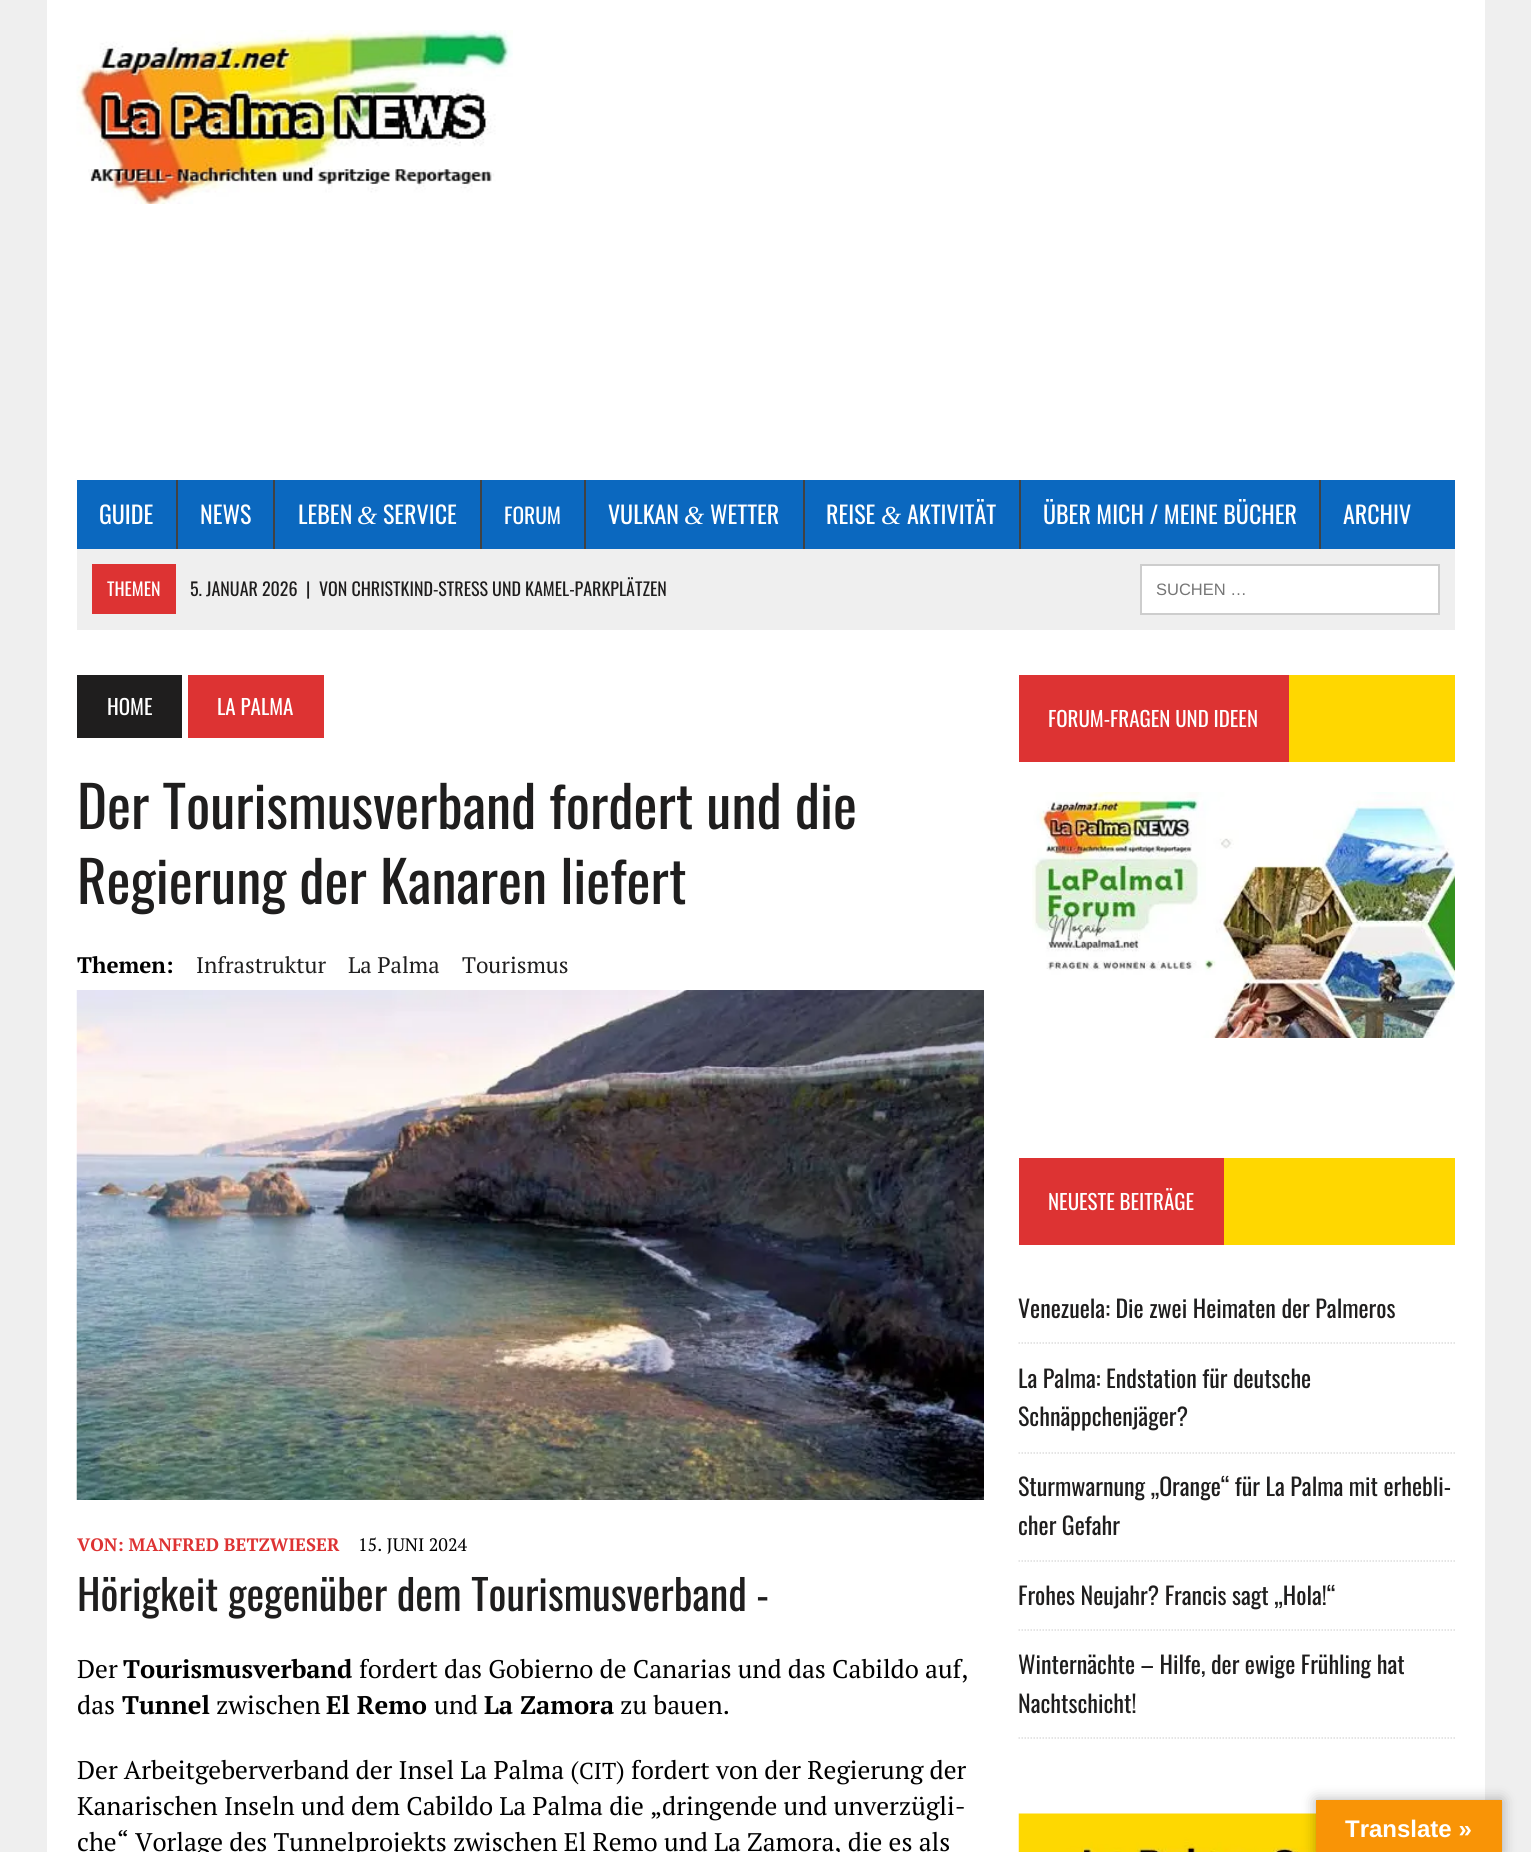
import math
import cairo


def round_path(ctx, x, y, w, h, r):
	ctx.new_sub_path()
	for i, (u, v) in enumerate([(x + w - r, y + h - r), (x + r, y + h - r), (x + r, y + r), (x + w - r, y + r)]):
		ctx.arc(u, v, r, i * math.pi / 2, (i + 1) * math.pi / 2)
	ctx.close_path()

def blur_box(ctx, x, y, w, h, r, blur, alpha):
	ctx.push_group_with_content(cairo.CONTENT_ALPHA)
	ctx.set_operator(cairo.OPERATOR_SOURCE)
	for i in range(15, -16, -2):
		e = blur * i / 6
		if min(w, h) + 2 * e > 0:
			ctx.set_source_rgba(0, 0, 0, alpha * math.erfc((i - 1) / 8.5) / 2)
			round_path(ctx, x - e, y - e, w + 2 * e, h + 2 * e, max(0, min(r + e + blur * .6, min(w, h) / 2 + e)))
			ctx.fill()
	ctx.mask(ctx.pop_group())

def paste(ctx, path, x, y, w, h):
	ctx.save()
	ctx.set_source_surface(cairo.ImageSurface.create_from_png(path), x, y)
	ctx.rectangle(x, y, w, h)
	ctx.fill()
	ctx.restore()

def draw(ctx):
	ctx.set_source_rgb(0.937, 0.937, 0.937)
	ctx.paint()
	ctx.set_source_rgb(1, 1, 1)
	ctx.rectangle(47, 0, 1438, 1852)
	ctx.fill()
	paste(ctx, 'media/1.png', 76, 30, 437, 174)
	ctx.set_source_rgb(0.043, 0.408, 0.749)
	ctx.rectangle(77, 480, 1378, 69)
	ctx.fill()
	ctx.select_font_face('Oswald')
	ctx.set_font_size(24)
	ctx.set_source_rgb(1, 1, 1)
	ctx.move_to(99, 524)
	ctx.show_text('GUIDE')
	ctx.set_source_rgb(0.259, 0.259, 0.259)
	ctx.rectangle(176, 480, 2, 69)
	ctx.fill()
	ctx.set_source_rgb(1, 1, 1)
	ctx.move_to(200, 524)
	ctx.show_text('NEWS')
	ctx.set_source_rgb(0.259, 0.259, 0.259)
	ctx.rectangle(273, 480, 2, 69)
	ctx.fill()
	ctx.set_source_rgb(1, 1, 1)
	ctx.move_to(298, 524)
	ctx.show_text('LEBEN')
	ctx.select_font_face('Liberation Serif', cairo.FONT_SLANT_ITALIC)
	ctx.set_font_size(26)
	ctx.move_to(357, 524)
	ctx.show_text('&')
	ctx.select_font_face('Oswald')
	ctx.set_font_size(24)
	ctx.move_to(383, 524)
	ctx.show_text('SERVICE')
	ctx.set_source_rgb(0.259, 0.259, 0.259)
	ctx.rectangle(480, 480, 2, 69)
	ctx.fill()
	ctx.set_font_size(21.5)
	ctx.set_source_rgb(1, 1, 1)
	ctx.move_to(504, 524)
	ctx.show_text('FORUM')
	ctx.set_source_rgb(0.259, 0.259, 0.259)
	ctx.rectangle(584, 480, 2, 69)
	ctx.fill()
	ctx.set_font_size(24)
	ctx.set_source_rgb(1, 1, 1)
	ctx.move_to(608, 524)
	ctx.show_text('VULKAN')
	ctx.select_font_face('Liberation Serif', cairo.FONT_SLANT_ITALIC)
	ctx.set_font_size(26)
	ctx.move_to(684, 524)
	ctx.show_text('&')
	ctx.select_font_face('Oswald')
	ctx.set_font_size(24)
	ctx.move_to(710, 524)
	ctx.show_text('WETTER')
	ctx.set_source_rgb(0.259, 0.259, 0.259)
	ctx.rectangle(803, 480, 2, 69)
	ctx.fill()
	ctx.set_source_rgb(1, 1, 1)
	ctx.move_to(826, 524)
	ctx.show_text('REISE')
	ctx.select_font_face('Liberation Serif', cairo.FONT_SLANT_ITALIC)
	ctx.set_font_size(26)
	ctx.move_to(881, 524)
	ctx.show_text('&')
	ctx.select_font_face('Oswald')
	ctx.set_font_size(24)
	ctx.move_to(907, 524)
	ctx.show_text('AKTIVITÄT')
	ctx.set_source_rgb(0.259, 0.259, 0.259)
	ctx.rectangle(1019, 480, 2, 69)
	ctx.fill()
	ctx.set_source_rgb(1, 1, 1)
	ctx.move_to(1043, 524)
	ctx.show_text('ÜBER MICH / MEINE BÜCHER')
	ctx.set_source_rgb(0.259, 0.259, 0.259)
	ctx.rectangle(1319, 480, 2, 69)
	ctx.fill()
	ctx.set_source_rgb(1, 1, 1)
	ctx.move_to(1343, 524)
	ctx.show_text('ARCHIV')
	ctx.set_source_rgb(0.937, 0.937, 0.937)
	ctx.rectangle(77, 549, 1378, 81)
	ctx.fill()
	ctx.set_source_rgb(0.867, 0.2, 0.2)
	ctx.rectangle(92, 564, 84, 50)
	ctx.fill()
	ctx.set_font_size(18)
	ctx.set_source_rgb(1, 1, 1)
	ctx.move_to(107, 596)
	ctx.show_text('THEMEN')
	ctx.set_source_rgb(0.122, 0.118, 0.118)
	for x, y, s in [
		(190, 596, '5. JANUAR 2026'),
		(306, 596, '|'),
		(319, 596, 'VON CHRISTKIND-STRESS UND KAMEL-PARKPLÄTZEN'),
	]:
		ctx.move_to(x, y)
		ctx.show_text(s)
	ctx.set_source_rgb(1, 1, 1)
	ctx.rectangle(1141, 565, 298, 49)
	ctx.fill_preserve()
	ctx.set_source_rgb(0.804, 0.804, 0.804)
	ctx.stroke()
	ctx.select_font_face('Liberation Sans')
	ctx.set_font_size(16.5)
	ctx.set_source_rgb(0.459, 0.459, 0.459)
	ctx.move_to(1156, 595)
	ctx.show_text('SUCHEN …')
	ctx.set_source_rgb(0.122, 0.118, 0.118)
	ctx.rectangle(77, 675, 105, 63)
	ctx.fill()
	ctx.select_font_face('Oswald')
	ctx.set_font_size(21)
	ctx.set_source_rgb(1, 1, 1)
	ctx.move_to(107, 715)
	ctx.show_text('HOME')
	ctx.set_source_rgb(0.867, 0.2, 0.2)
	ctx.rectangle(188, 675, 136, 63)
	ctx.fill()
	ctx.set_source_rgb(1, 1, 1)
	ctx.move_to(217, 715)
	ctx.show_text('LA PALMA')
	ctx.set_font_size(57)
	ctx.set_source_rgb(0.122, 0.118, 0.118)
	ctx.move_to(77, 829)
	ctx.show_text('Der Tourismusverband fordert und die')
	ctx.move_to(77, 904)
	ctx.show_text('Regierung der Kanaren liefert')
	ctx.select_font_face('PT Serif', cairo.FONT_SLANT_NORMAL, cairo.FONT_WEIGHT_BOLD)
	ctx.set_font_size(22.5)
	ctx.set_source_rgb(0, 0, 0)
	ctx.move_to(77, 973)
	ctx.show_text('Themen:')
	ctx.select_font_face('PT Serif')
	ctx.set_source_rgb(0.122, 0.118, 0.118)
	for x, y, s in [
		(196, 973, 'Infrastruktur'),
		(348, 973, 'La Palma'),
		(462, 973, 'Tourismus'),
	]:
		ctx.move_to(x, y)
		ctx.show_text(s)
	paste(ctx, 'media/2.png', 76, 990, 908, 510)
	ctx.select_font_face('PT Serif', cairo.FONT_SLANT_NORMAL, cairo.FONT_WEIGHT_BOLD)
	ctx.set_font_size(18)
	ctx.set_source_rgb(0.867, 0.2, 0.2)
	ctx.move_to(77, 1551)
	ctx.show_text('VON: MANFRED BETZWIESER')
	ctx.select_font_face('PT Serif')
	ctx.set_source_rgb(0, 0, 0)
	ctx.move_to(358, 1551)
	ctx.show_text('15. JUNI 2024')
	ctx.select_font_face('Oswald')
	ctx.set_font_size(42)
	ctx.set_source_rgb(0.122, 0.118, 0.118)
	ctx.move_to(77, 1611)
	ctx.show_text('Hörigkeit gegenüber dem Tourismusverband -')
	ctx.select_font_face('PT Serif')
	ctx.set_font_size(25.5)
	ctx.set_source_rgb(0, 0, 0)
	ctx.move_to(77, 1678)
	ctx.show_text('Der')
	ctx.select_font_face('PT Serif', cairo.FONT_SLANT_NORMAL, cairo.FONT_WEIGHT_BOLD)
	ctx.move_to(123, 1678)
	ctx.show_text('Tourismusverband')
	ctx.select_font_face('PT Serif')
	ctx.move_to(359, 1678)
	ctx.show_text('fordert das Gobierno de Canarias und das Cabildo auf,')
	ctx.move_to(77, 1714)
	ctx.show_text('das')
	ctx.select_font_face('PT Serif', cairo.FONT_SLANT_NORMAL, cairo.FONT_WEIGHT_BOLD)
	ctx.move_to(122, 1714)
	ctx.show_text('Tunnel')
	ctx.select_font_face('PT Serif')
	ctx.move_to(216, 1714)
	ctx.show_text('zwischen')
	ctx.select_font_face('PT Serif', cairo.FONT_SLANT_NORMAL, cairo.FONT_WEIGHT_BOLD)
	ctx.move_to(326, 1714)
	ctx.show_text('El Remo')
	ctx.select_font_face('PT Serif')
	ctx.move_to(434, 1714)
	ctx.show_text('und')
	ctx.select_font_face('PT Serif', cairo.FONT_SLANT_NORMAL, cairo.FONT_WEIGHT_BOLD)
	ctx.move_to(484, 1714)
	ctx.show_text('La Zamora')
	ctx.select_font_face('PT Serif')
	ctx.move_to(620, 1714)
	ctx.show_text('zu bauen.')
	ctx.move_to(77, 1779)
	ctx.show_text('Der Arbeitgeberverband der Insel La Palma (')
	ctx.set_font_size(23)
	ctx.move_to(579, 1779)
	ctx.show_text('CIT')
	ctx.set_font_size(25.5)
	for x, y, s in [
		(616, 1779, ') fordert von der Regierung der'),
		(77, 1815, 'Kanarischen Inseln und dem Cabildo La Palma die „dringende und unverzügli-'),
		(77, 1851, 'che“ Vorlage des Tunnelprojekts zwischen El Remo und La Zamora, die es als'),
	]:
		ctx.move_to(x, y)
		ctx.show_text(s)
	ctx.set_source_rgb(1, 0.843, 0)
	ctx.rectangle(1289, 675, 166, 87)
	ctx.fill()
	ctx.set_source_rgb(0.867, 0.2, 0.2)
	ctx.rectangle(1019, 675, 270, 87)
	ctx.fill()
	ctx.select_font_face('Oswald')
	ctx.set_font_size(21)
	ctx.set_source_rgb(1, 1, 1)
	ctx.move_to(1048, 727)
	ctx.show_text('FORUM-FRAGEN UND IDEEN')
	paste(ctx, 'media/3.png', 1032, 792, 423, 246)
	ctx.set_source_rgb(1, 0.843, 0)
	ctx.rectangle(1224, 1158, 231, 87)
	ctx.fill()
	ctx.set_source_rgb(0.867, 0.2, 0.2)
	ctx.rectangle(1019, 1158, 205, 87)
	ctx.fill()
	ctx.set_source_rgb(1, 1, 1)
	ctx.move_to(1048, 1210)
	ctx.show_text('NEUESTE BEITRÄGE')
	ctx.new_path()
	ctx.move_to(1018.5, 1343)
	ctx.line_to(1455, 1343)
	ctx.set_source_rgb(0.863, 0.863, 0.863)
	ctx.set_line_width(1.5)
	ctx.set_dash([1.5, 1.5])
	ctx.stroke()
	ctx.set_font_size(24)
	ctx.set_source_rgb(0.122, 0.118, 0.118)
	ctx.move_to(1018, 1318)
	ctx.show_text('Venezuela: Die zwei Heimaten der Palmeros')
	ctx.new_path()
	ctx.move_to(1018.5, 1453)
	ctx.line_to(1455, 1453)
	ctx.set_source_rgb(0.863, 0.863, 0.863)
	ctx.stroke()
	ctx.set_source_rgb(0.122, 0.118, 0.118)
	ctx.move_to(1018, 1388)
	ctx.show_text('La Palma: Endstation für deutsche')
	ctx.move_to(1018, 1426)
	ctx.show_text('Schnäppchenjäger?')
	ctx.new_path()
	ctx.move_to(1018.5, 1561)
	ctx.line_to(1455, 1561)
	ctx.set_source_rgb(0.863, 0.863, 0.863)
	ctx.stroke()
	ctx.set_source_rgb(0.122, 0.118, 0.118)
	ctx.move_to(1018, 1496)
	ctx.show_text('Sturmwarnung „Orange“ für La Palma mit erhebli-')
	ctx.move_to(1018, 1535)
	ctx.show_text('cher Gefahr')
	ctx.new_path()
	ctx.move_to(1018.5, 1630)
	ctx.line_to(1455, 1630)
	ctx.set_source_rgb(0.863, 0.863, 0.863)
	ctx.stroke()
	ctx.set_source_rgb(0.122, 0.118, 0.118)
	ctx.move_to(1018, 1605)
	ctx.show_text('Frohes Neujahr? Francis sagt „Hola!“')
	ctx.new_path()
	ctx.move_to(1018.5, 1738)
	ctx.line_to(1455, 1738)
	ctx.set_source_rgb(0.863, 0.863, 0.863)
	ctx.stroke()
	ctx.set_source_rgb(0.122, 0.118, 0.118)
	ctx.move_to(1018, 1674)
	ctx.show_text('Winternächte – Hilfe, der ewige Frühling hat')
	ctx.move_to(1018, 1713)
	ctx.show_text('Nachtschicht!')
	paste(ctx, 'media/4.png', 1018, 1813, 298, 39)
	ctx.set_source_rgb(0, 0, 0)
	blur_box(ctx, 1316, 1800, 186, 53, 0, 7, 0.3)
	ctx.set_source_rgb(0.973, 0.58, 0.024)
	ctx.rectangle(1316, 1800, 186, 52)
	ctx.fill()
	ctx.select_font_face('Liberation Sans', cairo.FONT_SLANT_NORMAL, cairo.FONT_WEIGHT_BOLD)
	ctx.set_source_rgb(1, 1, 1)
	ctx.move_to(1345, 1837)
	ctx.show_text('Translate »')


surface = cairo.ImageSurface(cairo.FORMAT_RGB24, 1531, 1852)
ctx = cairo.Context(surface)
options = cairo.FontOptions()
options.set_hint_metrics(cairo.HINT_METRICS_OFF)
options.set_hint_style(cairo.HINT_STYLE_NONE)
ctx.set_font_options(options)
ctx.set_miter_limit(4)
draw(ctx)
surface.write_to_png('image.png')
